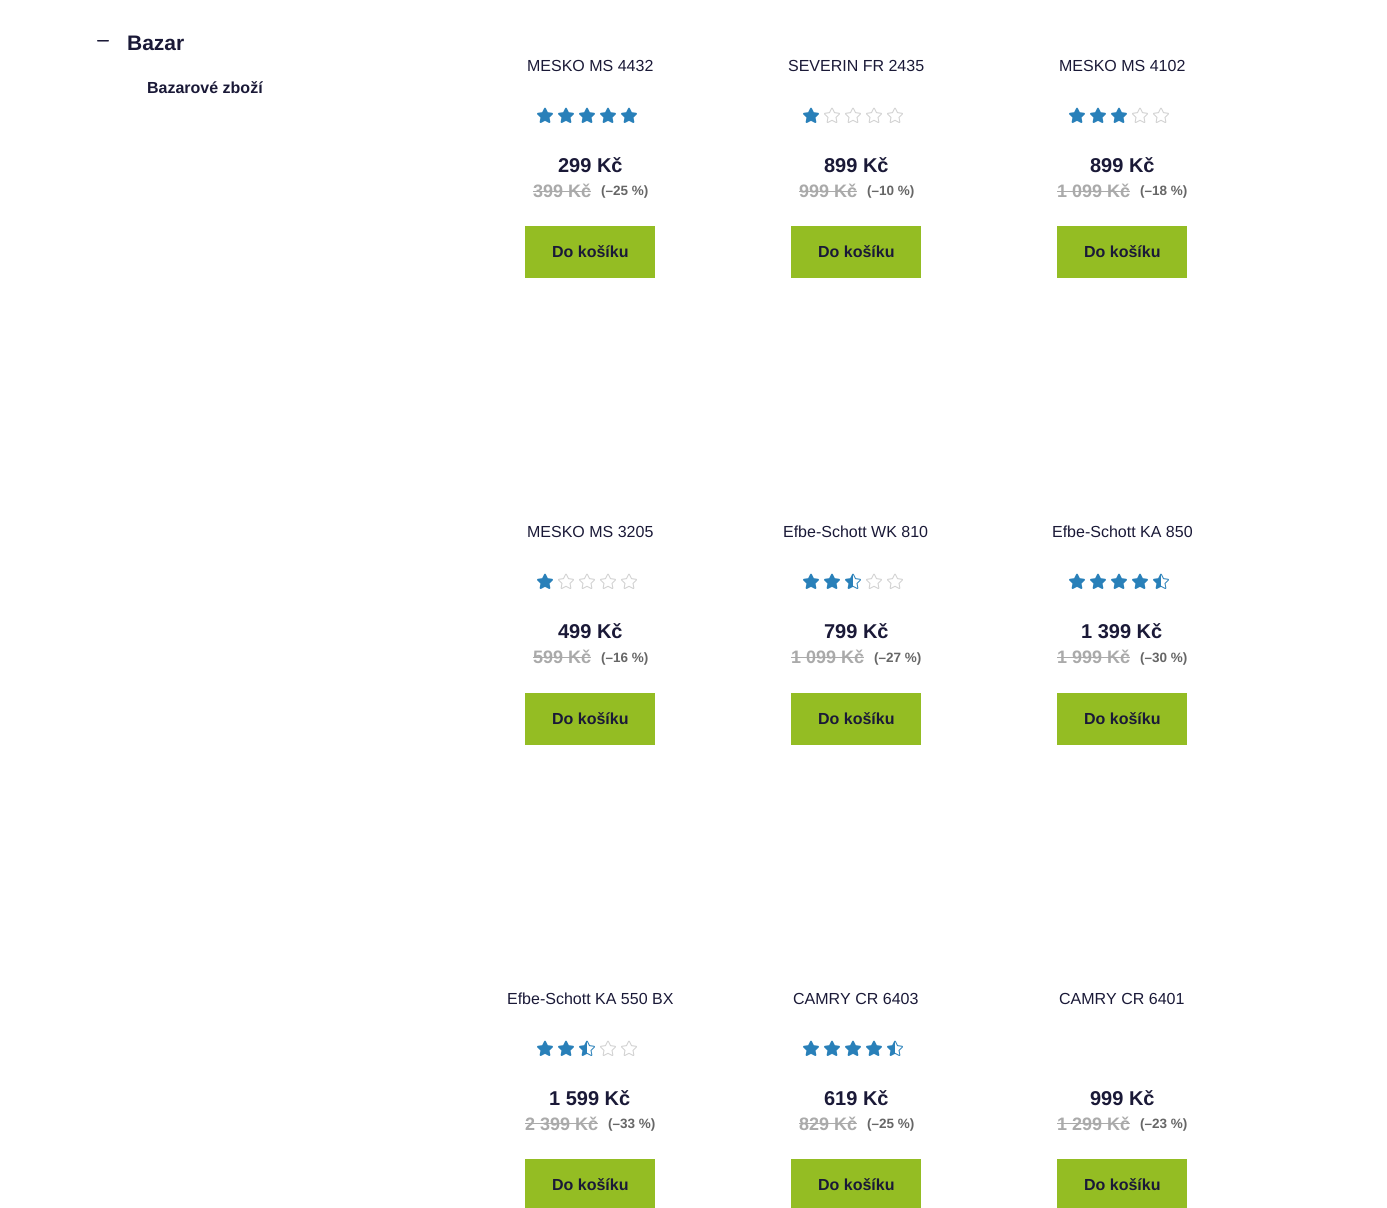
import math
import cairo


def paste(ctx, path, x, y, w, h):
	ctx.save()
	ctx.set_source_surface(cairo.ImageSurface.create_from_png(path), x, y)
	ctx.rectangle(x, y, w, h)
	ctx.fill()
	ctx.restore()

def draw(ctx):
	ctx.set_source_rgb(1, 1, 1)
	ctx.paint()
	paste(ctx, 'media/1.png', 97, 40, 12, 2)
	ctx.select_font_face('Liberation Sans', cairo.FONT_SLANT_NORMAL, cairo.FONT_WEIGHT_BOLD)
	ctx.set_font_size(21)
	ctx.set_source_rgb(0.102, 0.098, 0.216)
	ctx.move_to(127, 50)
	ctx.show_text('Bazar')
	ctx.set_font_size(16)
	ctx.move_to(147, 93)
	ctx.show_text('Bazarové zboží')
	ctx.select_font_face('Liberation Sans')
	ctx.move_to(527, 71)
	ctx.show_text('MESKO MS 4432')
	paste(ctx, 'media/2.png', 537, 107, 16, 16)
	paste(ctx, 'media/2.png', 558, 107, 16, 16)
	paste(ctx, 'media/2.png', 579, 107, 16, 16)
	paste(ctx, 'media/2.png', 600, 107, 16, 16)
	paste(ctx, 'media/2.png', 621, 107, 16, 16)
	ctx.select_font_face('Liberation Sans', cairo.FONT_SLANT_NORMAL, cairo.FONT_WEIGHT_BOLD)
	ctx.set_font_size(20)
	ctx.move_to(558, 172)
	ctx.show_text('299 Kč')
	ctx.set_font_size(18)
	ctx.set_source_rgb(0.667, 0.667, 0.667)
	ctx.move_to(533, 197)
	ctx.show_text('399 Kč')
	ctx.rectangle(533, 191, 58, 1)
	ctx.fill()
	ctx.set_font_size(13.5)
	ctx.set_source_rgb(0.4, 0.4, 0.4)
	ctx.move_to(601, 195)
	ctx.show_text('(–25 %)')
	ctx.set_source_rgb(0.58, 0.741, 0.137)
	ctx.rectangle(525, 226, 130, 52)
	ctx.fill()
	ctx.set_font_size(16)
	ctx.set_source_rgb(0.102, 0.098, 0.216)
	ctx.move_to(552, 257)
	ctx.show_text('Do košíku')
	ctx.select_font_face('Liberation Sans')
	ctx.move_to(788, 71)
	ctx.show_text('SEVERIN FR 2435')
	paste(ctx, 'media/2.png', 803, 107, 16, 16)
	paste(ctx, 'media/3.png', 824, 107, 16, 16)
	paste(ctx, 'media/3.png', 845, 107, 16, 16)
	paste(ctx, 'media/3.png', 866, 107, 16, 16)
	paste(ctx, 'media/3.png', 887, 107, 16, 16)
	ctx.select_font_face('Liberation Sans', cairo.FONT_SLANT_NORMAL, cairo.FONT_WEIGHT_BOLD)
	ctx.set_font_size(20)
	ctx.move_to(824, 172)
	ctx.show_text('899 Kč')
	ctx.set_font_size(18)
	ctx.set_source_rgb(0.667, 0.667, 0.667)
	ctx.move_to(799, 197)
	ctx.show_text('999 Kč')
	ctx.rectangle(799, 191, 58, 1)
	ctx.fill()
	ctx.set_font_size(13.5)
	ctx.set_source_rgb(0.4, 0.4, 0.4)
	ctx.move_to(867, 195)
	ctx.show_text('(–10 %)')
	ctx.set_source_rgb(0.58, 0.741, 0.137)
	ctx.rectangle(791, 226, 130, 52)
	ctx.fill()
	ctx.set_font_size(16)
	ctx.set_source_rgb(0.102, 0.098, 0.216)
	ctx.move_to(818, 257)
	ctx.show_text('Do košíku')
	ctx.select_font_face('Liberation Sans')
	ctx.move_to(1059, 71)
	ctx.show_text('MESKO MS 4102')
	paste(ctx, 'media/2.png', 1069, 107, 16, 16)
	paste(ctx, 'media/2.png', 1090, 107, 16, 16)
	paste(ctx, 'media/2.png', 1111, 107, 16, 16)
	paste(ctx, 'media/3.png', 1132, 107, 16, 16)
	paste(ctx, 'media/3.png', 1153, 107, 16, 16)
	ctx.select_font_face('Liberation Sans', cairo.FONT_SLANT_NORMAL, cairo.FONT_WEIGHT_BOLD)
	ctx.set_font_size(20)
	ctx.move_to(1090, 172)
	ctx.show_text('899 Kč')
	ctx.set_font_size(18)
	ctx.set_source_rgb(0.667, 0.667, 0.667)
	ctx.move_to(1057, 197)
	ctx.show_text('1 099 Kč')
	ctx.rectangle(1057, 191, 73, 1)
	ctx.fill()
	ctx.set_font_size(13.5)
	ctx.set_source_rgb(0.4, 0.4, 0.4)
	ctx.move_to(1140, 195)
	ctx.show_text('(–18 %)')
	ctx.set_source_rgb(0.58, 0.741, 0.137)
	ctx.rectangle(1057, 226, 130, 52)
	ctx.fill()
	ctx.set_font_size(16)
	ctx.set_source_rgb(0.102, 0.098, 0.216)
	ctx.move_to(1084, 257)
	ctx.show_text('Do košíku')
	ctx.select_font_face('Liberation Sans')
	ctx.move_to(527, 537)
	ctx.show_text('MESKO MS 3205')
	paste(ctx, 'media/2.png', 537, 573, 16, 16)
	paste(ctx, 'media/3.png', 558, 573, 16, 16)
	paste(ctx, 'media/3.png', 579, 573, 16, 16)
	paste(ctx, 'media/3.png', 600, 573, 16, 16)
	paste(ctx, 'media/3.png', 621, 573, 16, 16)
	ctx.select_font_face('Liberation Sans', cairo.FONT_SLANT_NORMAL, cairo.FONT_WEIGHT_BOLD)
	ctx.set_font_size(20)
	ctx.move_to(558, 638)
	ctx.show_text('499 Kč')
	ctx.set_font_size(18)
	ctx.set_source_rgb(0.667, 0.667, 0.667)
	ctx.move_to(533, 663)
	ctx.show_text('599 Kč')
	ctx.rectangle(533, 657, 58, 1)
	ctx.fill()
	ctx.set_font_size(13.5)
	ctx.set_source_rgb(0.4, 0.4, 0.4)
	ctx.move_to(601, 662)
	ctx.show_text('(–16 %)')
	ctx.set_source_rgb(0.58, 0.741, 0.137)
	ctx.rectangle(525, 693, 130, 52)
	ctx.fill()
	ctx.set_font_size(16)
	ctx.set_source_rgb(0.102, 0.098, 0.216)
	ctx.move_to(552, 724)
	ctx.show_text('Do košíku')
	ctx.select_font_face('Liberation Sans')
	ctx.move_to(783, 537)
	ctx.show_text('Efbe-Schott WK 810')
	paste(ctx, 'media/2.png', 803, 573, 16, 16)
	paste(ctx, 'media/2.png', 824, 573, 16, 16)
	paste(ctx, 'media/4.png', 845, 573, 16, 16)
	paste(ctx, 'media/3.png', 866, 573, 16, 16)
	paste(ctx, 'media/3.png', 887, 573, 16, 16)
	ctx.select_font_face('Liberation Sans', cairo.FONT_SLANT_NORMAL, cairo.FONT_WEIGHT_BOLD)
	ctx.set_font_size(20)
	ctx.move_to(824, 638)
	ctx.show_text('799 Kč')
	ctx.set_font_size(18)
	ctx.set_source_rgb(0.667, 0.667, 0.667)
	ctx.move_to(791, 663)
	ctx.show_text('1 099 Kč')
	ctx.rectangle(791, 657, 73, 1)
	ctx.fill()
	ctx.set_font_size(13.5)
	ctx.set_source_rgb(0.4, 0.4, 0.4)
	ctx.move_to(874, 662)
	ctx.show_text('(–27 %)')
	ctx.set_source_rgb(0.58, 0.741, 0.137)
	ctx.rectangle(791, 693, 130, 52)
	ctx.fill()
	ctx.set_font_size(16)
	ctx.set_source_rgb(0.102, 0.098, 0.216)
	ctx.move_to(818, 724)
	ctx.show_text('Do košíku')
	ctx.select_font_face('Liberation Sans')
	ctx.move_to(1052, 537)
	ctx.show_text('Efbe-Schott KA 850')
	paste(ctx, 'media/2.png', 1069, 573, 16, 16)
	paste(ctx, 'media/2.png', 1090, 573, 16, 16)
	paste(ctx, 'media/2.png', 1111, 573, 16, 16)
	paste(ctx, 'media/2.png', 1132, 573, 16, 16)
	paste(ctx, 'media/4.png', 1153, 573, 16, 16)
	ctx.select_font_face('Liberation Sans', cairo.FONT_SLANT_NORMAL, cairo.FONT_WEIGHT_BOLD)
	ctx.set_font_size(20)
	ctx.move_to(1081, 638)
	ctx.show_text('1 399 Kč')
	ctx.set_font_size(18)
	ctx.set_source_rgb(0.667, 0.667, 0.667)
	ctx.move_to(1057, 663)
	ctx.show_text('1 999 Kč')
	ctx.rectangle(1057, 657, 73, 1)
	ctx.fill()
	ctx.set_font_size(13.5)
	ctx.set_source_rgb(0.4, 0.4, 0.4)
	ctx.move_to(1140, 662)
	ctx.show_text('(–30 %)')
	ctx.set_source_rgb(0.58, 0.741, 0.137)
	ctx.rectangle(1057, 693, 130, 52)
	ctx.fill()
	ctx.set_font_size(16)
	ctx.set_source_rgb(0.102, 0.098, 0.216)
	ctx.move_to(1084, 724)
	ctx.show_text('Do košíku')
	ctx.select_font_face('Liberation Sans')
	ctx.move_to(507, 1004)
	ctx.show_text('Efbe-Schott KA 550 BX')
	paste(ctx, 'media/2.png', 537, 1040, 16, 16)
	paste(ctx, 'media/2.png', 558, 1040, 16, 16)
	paste(ctx, 'media/4.png', 579, 1040, 16, 16)
	paste(ctx, 'media/3.png', 600, 1040, 16, 16)
	paste(ctx, 'media/3.png', 621, 1040, 16, 16)
	ctx.select_font_face('Liberation Sans', cairo.FONT_SLANT_NORMAL, cairo.FONT_WEIGHT_BOLD)
	ctx.set_font_size(20)
	ctx.move_to(549, 1105)
	ctx.show_text('1 599 Kč')
	ctx.set_font_size(18)
	ctx.set_source_rgb(0.667, 0.667, 0.667)
	ctx.move_to(525, 1130)
	ctx.show_text('2 399 Kč')
	ctx.rectangle(525, 1123, 73, 1)
	ctx.fill()
	ctx.set_font_size(13.5)
	ctx.set_source_rgb(0.4, 0.4, 0.4)
	ctx.move_to(608, 1128)
	ctx.show_text('(–33 %)')
	ctx.set_source_rgb(0.58, 0.741, 0.137)
	ctx.rectangle(525, 1159, 130, 49)
	ctx.fill()
	ctx.set_font_size(16)
	ctx.set_source_rgb(0.102, 0.098, 0.216)
	ctx.move_to(552, 1190)
	ctx.show_text('Do košíku')
	ctx.select_font_face('Liberation Sans')
	ctx.move_to(793, 1004)
	ctx.show_text('CAMRY CR 6403')
	paste(ctx, 'media/2.png', 803, 1040, 16, 16)
	paste(ctx, 'media/2.png', 824, 1040, 16, 16)
	paste(ctx, 'media/2.png', 845, 1040, 16, 16)
	paste(ctx, 'media/2.png', 866, 1040, 16, 16)
	paste(ctx, 'media/4.png', 887, 1040, 16, 16)
	ctx.select_font_face('Liberation Sans', cairo.FONT_SLANT_NORMAL, cairo.FONT_WEIGHT_BOLD)
	ctx.set_font_size(20)
	ctx.move_to(824, 1105)
	ctx.show_text('619 Kč')
	ctx.set_font_size(18)
	ctx.set_source_rgb(0.667, 0.667, 0.667)
	ctx.move_to(799, 1130)
	ctx.show_text('829 Kč')
	ctx.rectangle(799, 1123, 58, 1)
	ctx.fill()
	ctx.set_font_size(13.5)
	ctx.set_source_rgb(0.4, 0.4, 0.4)
	ctx.move_to(867, 1128)
	ctx.show_text('(–25 %)')
	ctx.set_source_rgb(0.58, 0.741, 0.137)
	ctx.rectangle(791, 1159, 130, 49)
	ctx.fill()
	ctx.set_font_size(16)
	ctx.set_source_rgb(0.102, 0.098, 0.216)
	ctx.move_to(818, 1190)
	ctx.show_text('Do košíku')
	ctx.select_font_face('Liberation Sans')
	ctx.move_to(1059, 1004)
	ctx.show_text('CAMRY CR 6401')
	ctx.select_font_face('Liberation Sans', cairo.FONT_SLANT_NORMAL, cairo.FONT_WEIGHT_BOLD)
	ctx.set_font_size(20)
	ctx.move_to(1090, 1105)
	ctx.show_text('999 Kč')
	ctx.set_font_size(18)
	ctx.set_source_rgb(0.667, 0.667, 0.667)
	ctx.move_to(1057, 1130)
	ctx.show_text('1 299 Kč')
	ctx.rectangle(1057, 1123, 73, 1)
	ctx.fill()
	ctx.set_font_size(13.5)
	ctx.set_source_rgb(0.4, 0.4, 0.4)
	ctx.move_to(1140, 1128)
	ctx.show_text('(–23 %)')
	ctx.set_source_rgb(0.58, 0.741, 0.137)
	ctx.rectangle(1057, 1159, 130, 49)
	ctx.fill()
	ctx.set_font_size(16)
	ctx.set_source_rgb(0.102, 0.098, 0.216)
	ctx.move_to(1084, 1190)
	ctx.show_text('Do košíku')


surface = cairo.ImageSurface(cairo.FORMAT_RGB24, 1387, 1208)
ctx = cairo.Context(surface)
options = cairo.FontOptions()
options.set_hint_metrics(cairo.HINT_METRICS_OFF)
options.set_hint_style(cairo.HINT_STYLE_NONE)
ctx.set_font_options(options)
ctx.set_miter_limit(4)
draw(ctx)
surface.write_to_png('image.png')
